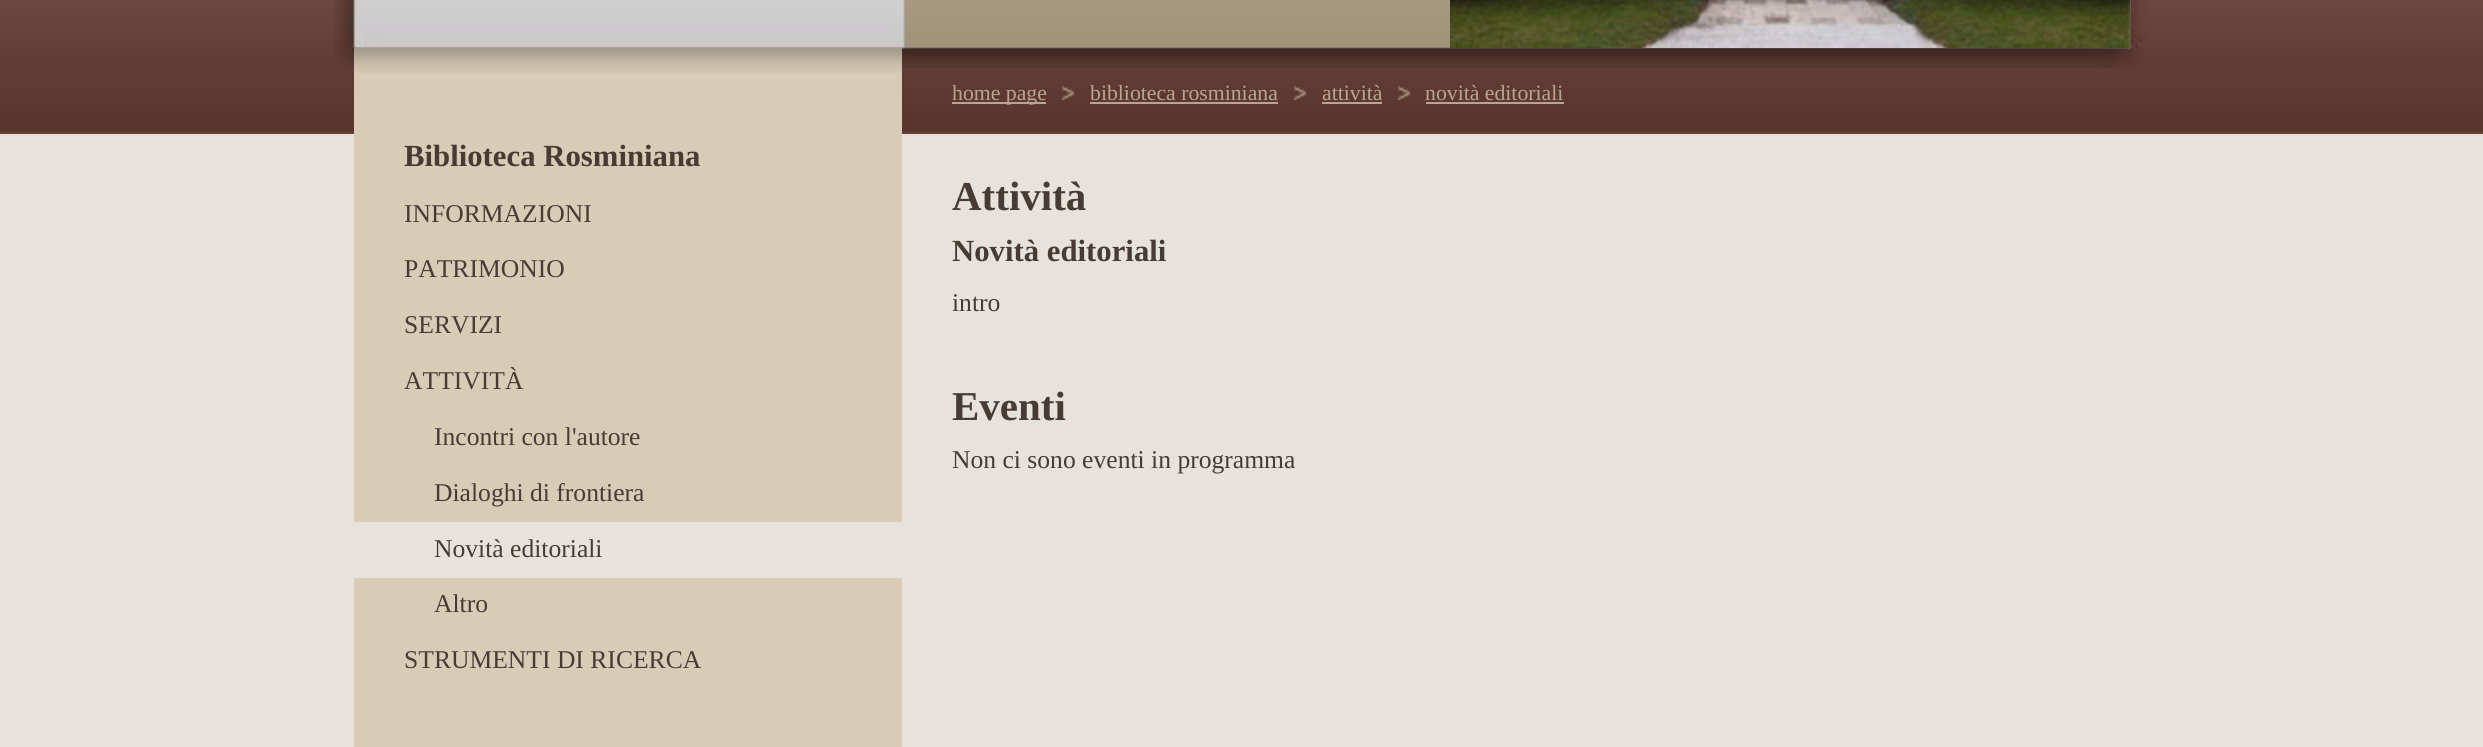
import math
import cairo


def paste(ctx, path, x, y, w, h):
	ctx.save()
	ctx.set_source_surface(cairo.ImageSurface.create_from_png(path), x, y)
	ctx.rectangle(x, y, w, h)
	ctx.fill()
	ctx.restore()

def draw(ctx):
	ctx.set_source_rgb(0.906, 0.886, 0.859)
	ctx.paint()
	paste(ctx, 'media/1.png', 0, 0, 2483, 134)
	paste(ctx, 'media/2.png', 334, 0, 1815, 68)
	paste(ctx, 'media/3.png', 1450, 0, 680, 48)
	ctx.set_source_rgb(0.851, 0.8, 0.714)
	ctx.rectangle(354, 73, 548, 674)
	ctx.fill()
	paste(ctx, 'media/4.png', 354, 48, 548, 25)
	ctx.select_font_face('Liberation Serif', cairo.FONT_SLANT_NORMAL, cairo.FONT_WEIGHT_BOLD)
	ctx.set_font_size(30.75)
	ctx.set_source_rgb(0.275, 0.235, 0.208)
	ctx.move_to(404, 166)
	ctx.show_text('Biblioteca Rosminiana')
	ctx.select_font_face('Liberation Serif')
	ctx.set_font_size(25.6)
	for x, y, s in [
		(404, 222, 'INFORMAZIONI'),
		(404, 277, 'PATRIMONIO'),
		(404, 333, 'SERVIZI'),
		(404, 389, 'ATTIVITÀ'),
		(434, 445, 'Incontri con l\'autore'),
		(434, 501, 'Dialoghi di frontiera'),
	]:
		ctx.move_to(x, y)
		ctx.show_text(s)
	ctx.set_source_rgb(0.906, 0.886, 0.859)
	ctx.rectangle(354, 522, 548, 56)
	ctx.fill()
	ctx.set_source_rgb(0.275, 0.235, 0.208)
	for x, y, s in [
		(434, 557, 'Novità editoriali'),
		(434, 612, 'Altro'),
		(404, 668, 'STRUMENTI DI RICERCA'),
	]:
		ctx.move_to(x, y)
		ctx.show_text(s)
	ctx.set_source_rgb(0.722, 0.647, 0.576)
	ctx.rectangle(952, 102, 94, 2)
	ctx.fill()
	ctx.set_font_size(21.75)
	ctx.move_to(952, 100)
	ctx.show_text('home page')
	paste(ctx, 'media/5.png', 1062, 86, 12, 14)
	ctx.move_to(1090, 100)
	ctx.show_text('biblioteca rosminiana')
	ctx.rectangle(1090, 102, 188, 2)
	ctx.fill()
	paste(ctx, 'media/5.png', 1294, 86, 12, 14)
	ctx.move_to(1322, 100)
	ctx.show_text('attività')
	ctx.rectangle(1322, 102, 60, 2)
	ctx.fill()
	paste(ctx, 'media/5.png', 1398, 86, 12, 14)
	ctx.move_to(1425, 100)
	ctx.show_text('novità editoriali')
	ctx.rectangle(1426, 102, 138, 2)
	ctx.fill()
	ctx.select_font_face('Liberation Serif', cairo.FONT_SLANT_NORMAL, cairo.FONT_WEIGHT_BOLD)
	ctx.set_font_size(41)
	ctx.set_source_rgb(0.275, 0.235, 0.208)
	ctx.move_to(952, 210)
	ctx.show_text('Attività')
	ctx.set_font_size(30.75)
	ctx.move_to(952, 261)
	ctx.show_text('Novità editoriali')
	ctx.select_font_face('Liberation Serif')
	ctx.set_font_size(25.6)
	ctx.move_to(952, 311)
	ctx.show_text('intro')
	ctx.select_font_face('Liberation Serif', cairo.FONT_SLANT_NORMAL, cairo.FONT_WEIGHT_BOLD)
	ctx.set_font_size(41)
	ctx.move_to(952, 420)
	ctx.show_text('Eventi')
	ctx.select_font_face('Liberation Serif')
	ctx.set_font_size(25.6)
	ctx.move_to(952, 468)
	ctx.show_text('Non ci sono eventi in programma')


surface = cairo.ImageSurface(cairo.FORMAT_RGB24, 2483, 747)
ctx = cairo.Context(surface)
options = cairo.FontOptions()
options.set_hint_metrics(cairo.HINT_METRICS_OFF)
options.set_hint_style(cairo.HINT_STYLE_NONE)
ctx.set_font_options(options)
ctx.set_miter_limit(4)
draw(ctx)
surface.write_to_png('image.png')
